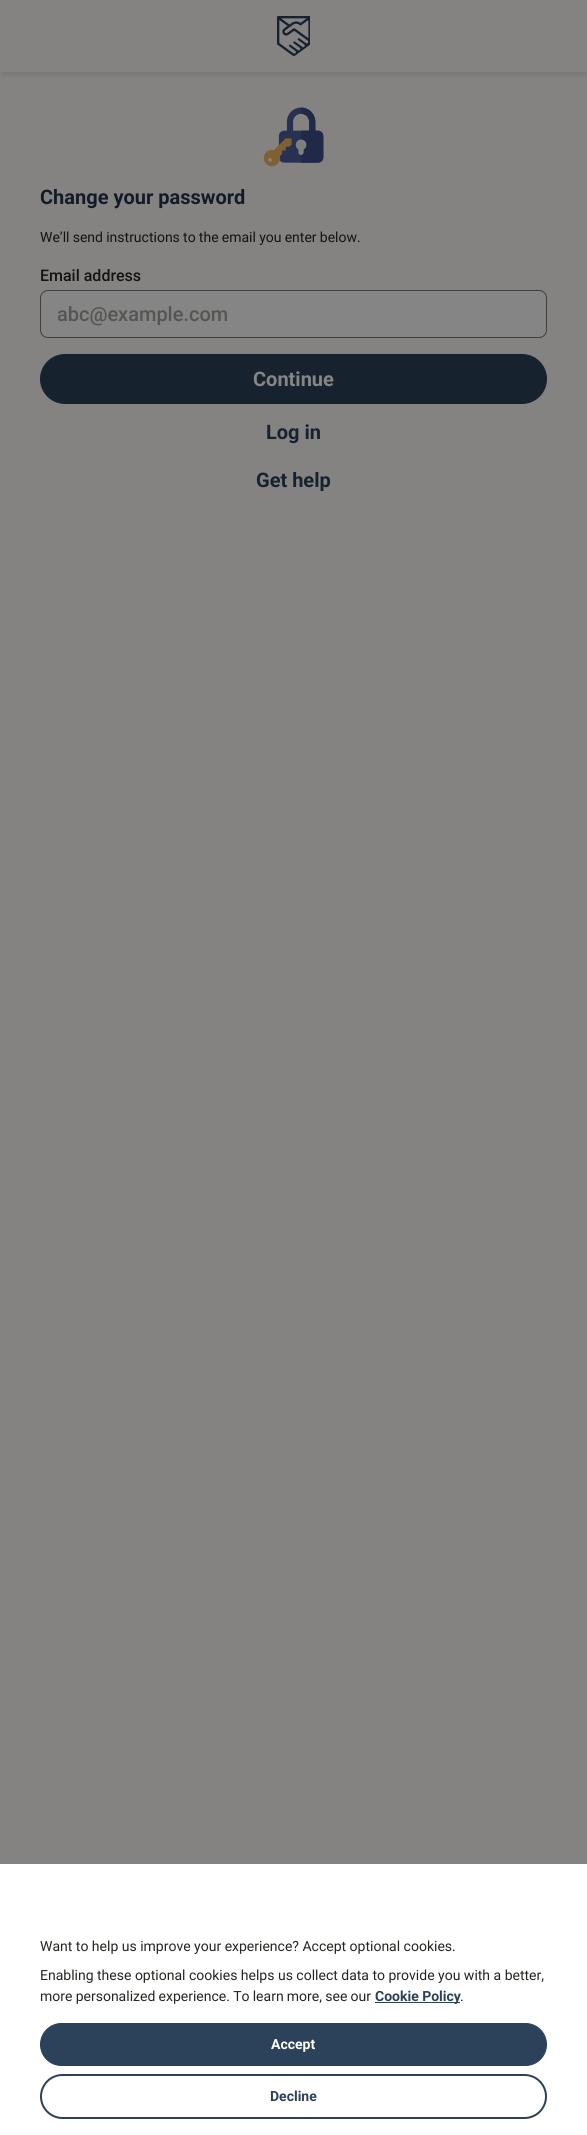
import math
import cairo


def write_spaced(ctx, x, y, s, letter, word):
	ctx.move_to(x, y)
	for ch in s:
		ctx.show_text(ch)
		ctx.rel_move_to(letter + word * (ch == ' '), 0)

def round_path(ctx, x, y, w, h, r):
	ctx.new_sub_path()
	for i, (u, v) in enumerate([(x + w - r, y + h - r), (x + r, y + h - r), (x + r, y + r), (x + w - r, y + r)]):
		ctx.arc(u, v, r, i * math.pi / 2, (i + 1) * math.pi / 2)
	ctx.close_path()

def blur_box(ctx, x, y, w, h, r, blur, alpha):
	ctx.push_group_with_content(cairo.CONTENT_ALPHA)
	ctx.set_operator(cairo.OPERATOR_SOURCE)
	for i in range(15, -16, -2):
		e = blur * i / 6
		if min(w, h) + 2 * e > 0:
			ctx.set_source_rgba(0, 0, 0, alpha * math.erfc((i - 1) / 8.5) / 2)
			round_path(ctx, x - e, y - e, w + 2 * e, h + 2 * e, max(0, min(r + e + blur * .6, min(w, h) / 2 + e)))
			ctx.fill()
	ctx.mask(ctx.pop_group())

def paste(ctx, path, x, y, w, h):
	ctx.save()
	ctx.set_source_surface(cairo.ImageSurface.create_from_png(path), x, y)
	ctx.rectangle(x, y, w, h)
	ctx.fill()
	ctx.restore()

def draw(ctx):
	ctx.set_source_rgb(0.518, 0.514, 0.51)
	ctx.paint()
	ctx.save()
	ctx.rectangle(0, 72, 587, 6)
	ctx.clip()
	ctx.set_source_rgb(0, 0, 0)
	blur_box(ctx, 1, 5, 585, 70, 0, 3, 0.1)
	ctx.restore()
	paste(ctx, 'media/1.png', 277, 16, 33, 40)
	paste(ctx, 'media/2.png', 263, 107, 61, 60)
	ctx.select_font_face('Roboto', cairo.FONT_SLANT_NORMAL, cairo.FONT_WEIGHT_BOLD)
	ctx.set_font_size(20)
	ctx.set_source_rgb(0.071, 0.11, 0.157)
	ctx.move_to(40, 204)
	ctx.show_text('Change your password')
	ctx.select_font_face('Roboto')
	ctx.set_font_size(14)
	ctx.set_source_rgb(0.075, 0.078, 0.067)
	write_spaced(ctx, 40, 242, 'We’ll send instructions to the email you enter below.', 0, -0.25)
	ctx.select_font_face('Roboto Medium')
	ctx.set_font_size(16)
	ctx.move_to(40, 281)
	ctx.show_text('Email address')
	ctx.set_source_rgb(0.522, 0.522, 0.522)
	round_path(ctx, 40.5, 290.5, 506, 47, 7.5)
	ctx.fill_preserve()
	ctx.set_source_rgb(0.259, 0.251, 0.239)
	ctx.set_line_width(1)
	ctx.stroke()
	ctx.set_font_size(20)
	ctx.set_source_rgb(0.337, 0.333, 0.322)
	ctx.move_to(57, 321)
	ctx.show_text('abc@example.com')
	ctx.set_source_rgb(0.09, 0.133, 0.184)
	round_path(ctx, 40.5, 354.5, 506, 49, 24.5)
	ctx.fill_preserve()
	ctx.stroke()
	ctx.select_font_face('Roboto', cairo.FONT_SLANT_NORMAL, cairo.FONT_WEIGHT_BOLD)
	ctx.set_source_rgb(0.522, 0.522, 0.522)
	ctx.move_to(253, 386)
	ctx.show_text('Continue')
	ctx.set_source_rgb(0.09, 0.133, 0.184)
	ctx.move_to(266, 439)
	ctx.show_text('Log in')
	ctx.move_to(256, 487)
	ctx.show_text('Get help')
	ctx.set_source_rgb(1, 1, 1)
	ctx.rectangle(0, 1864, 587, 271)
	ctx.fill()
	ctx.select_font_face('Roboto')
	ctx.set_font_size(14)
	ctx.set_source_rgb(0.141, 0.149, 0.125)
	ctx.move_to(40, 1951)
	ctx.show_text('Want to help us improve your experience? Accept optional cookies.')
	ctx.move_to(40, 1980)
	ctx.show_text('Enabling these optional cookies helps us collect data to provide you with a better,')
	write_spaced(ctx, 40, 2001, 'more personalized experience. To learn more, see our', 0, -0.25)
	ctx.set_source_rgb(0.173, 0.255, 0.353)
	ctx.rectangle(375, 2002, 85, 1)
	ctx.fill()
	ctx.select_font_face('Roboto', cairo.FONT_SLANT_NORMAL, cairo.FONT_WEIGHT_BOLD)
	ctx.move_to(375, 2001)
	ctx.show_text('Cookie Policy')
	ctx.select_font_face('Roboto')
	ctx.set_source_rgb(0.141, 0.149, 0.125)
	ctx.move_to(460, 2001)
	ctx.show_text('.')
	ctx.set_source_rgb(0.173, 0.255, 0.353)
	round_path(ctx, 40.5, 2023.5, 506, 42, 21)
	ctx.fill_preserve()
	ctx.stroke()
	ctx.select_font_face('Roboto', cairo.FONT_SLANT_NORMAL, cairo.FONT_WEIGHT_BOLD)
	ctx.set_source_rgb(1, 1, 1)
	ctx.move_to(271, 2049)
	ctx.show_text('Accept')
	round_path(ctx, 41, 2075, 505, 43, 21.5)
	ctx.set_source_rgb(0.173, 0.255, 0.353)
	ctx.set_line_width(2)
	ctx.stroke()
	ctx.move_to(270, 2101)
	ctx.show_text('Decline')


surface = cairo.ImageSurface(cairo.FORMAT_RGB24, 587, 2135)
ctx = cairo.Context(surface)
options = cairo.FontOptions()
options.set_hint_metrics(cairo.HINT_METRICS_OFF)
options.set_hint_style(cairo.HINT_STYLE_NONE)
ctx.set_font_options(options)
ctx.set_miter_limit(4)
draw(ctx)
surface.write_to_png('image.png')
